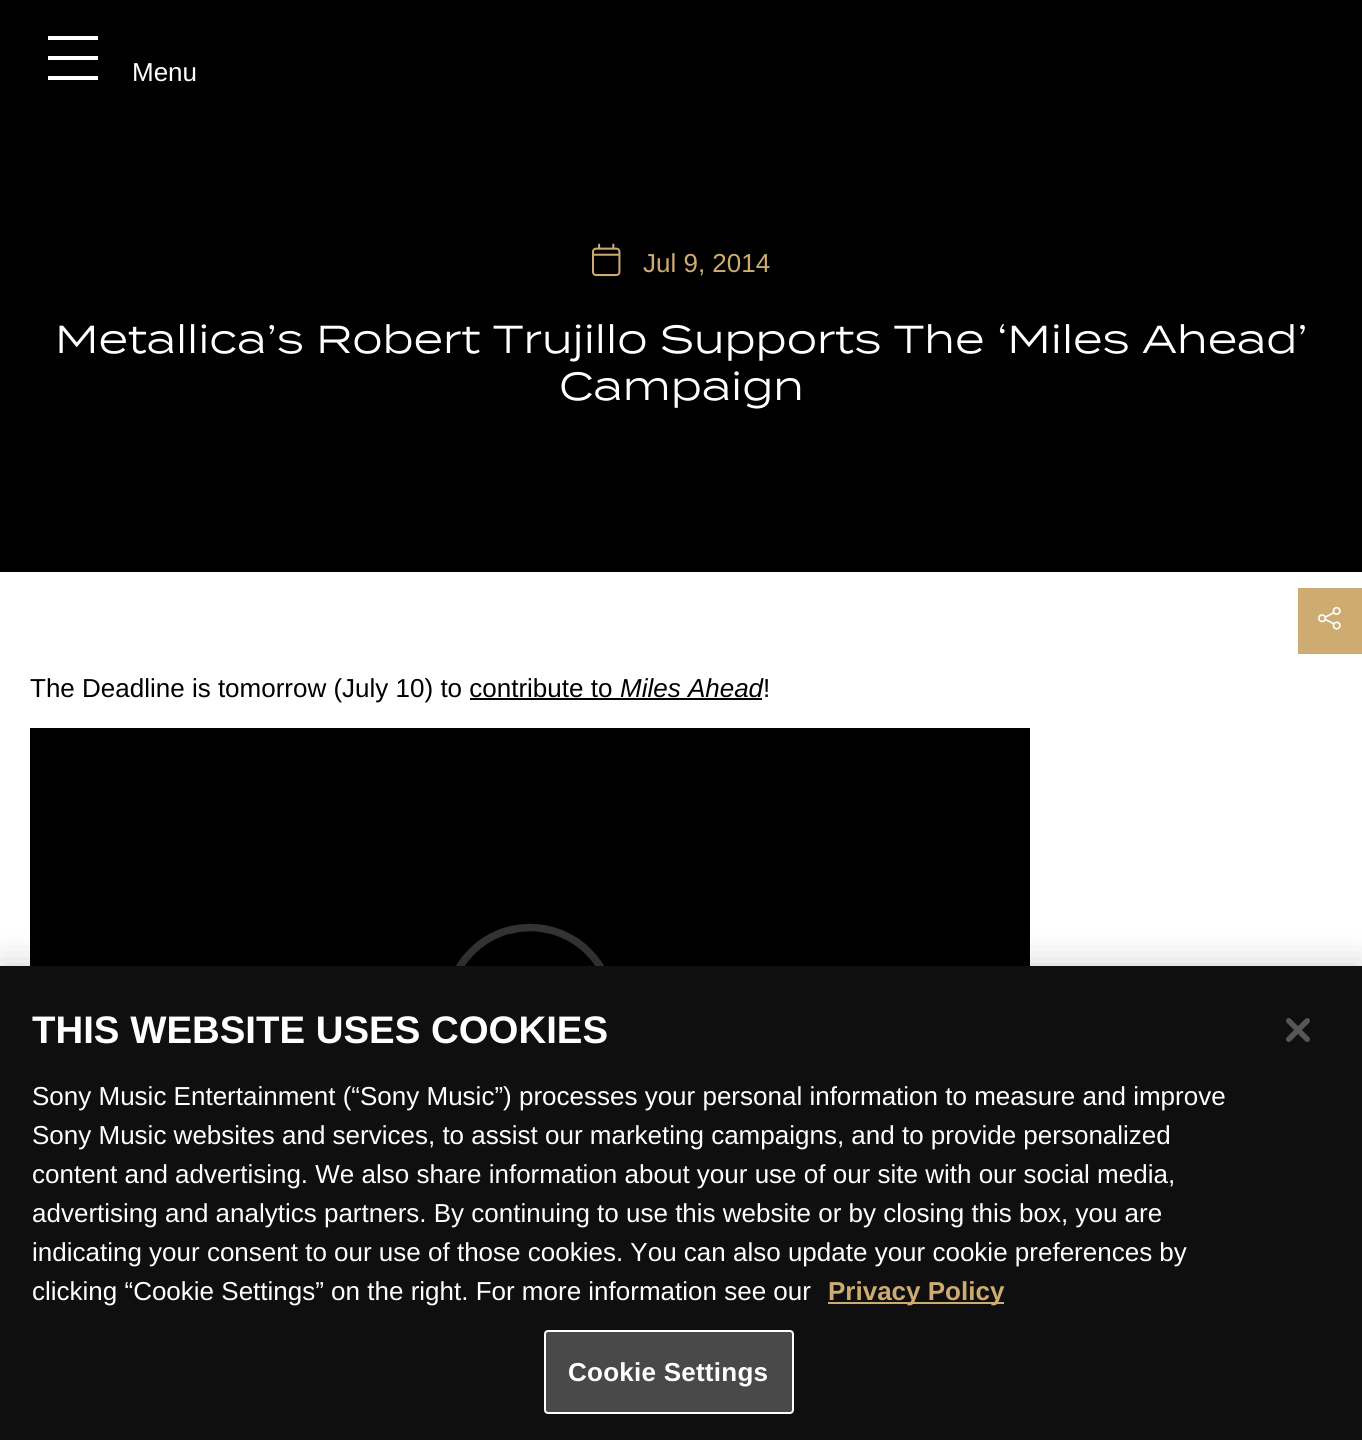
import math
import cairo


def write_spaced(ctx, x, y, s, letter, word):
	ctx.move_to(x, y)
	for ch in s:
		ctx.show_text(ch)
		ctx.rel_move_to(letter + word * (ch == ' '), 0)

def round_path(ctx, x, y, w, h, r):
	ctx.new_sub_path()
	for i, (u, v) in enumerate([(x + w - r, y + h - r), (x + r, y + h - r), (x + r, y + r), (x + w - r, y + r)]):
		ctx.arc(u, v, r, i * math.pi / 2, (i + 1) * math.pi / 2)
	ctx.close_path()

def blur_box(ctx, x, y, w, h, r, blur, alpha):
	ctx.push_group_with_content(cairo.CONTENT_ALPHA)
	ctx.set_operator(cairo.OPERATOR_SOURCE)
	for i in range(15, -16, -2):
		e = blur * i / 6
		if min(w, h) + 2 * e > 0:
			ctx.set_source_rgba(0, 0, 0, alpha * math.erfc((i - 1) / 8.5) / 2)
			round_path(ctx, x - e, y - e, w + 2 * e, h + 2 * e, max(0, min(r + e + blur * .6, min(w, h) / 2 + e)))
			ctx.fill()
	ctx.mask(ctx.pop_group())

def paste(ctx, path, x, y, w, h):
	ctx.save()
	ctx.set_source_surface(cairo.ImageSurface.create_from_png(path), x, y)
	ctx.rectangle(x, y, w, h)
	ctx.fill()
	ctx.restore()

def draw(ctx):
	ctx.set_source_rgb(1, 1, 1)
	ctx.paint()
	ctx.set_source_rgb(0, 0, 0)
	ctx.rectangle(0, 0, 1362, 572)
	ctx.fill()
	ctx.set_source_rgb(1, 1, 1)
	ctx.rectangle(48, 76, 50, 4)
	ctx.rectangle(48, 36, 50, 4)
	ctx.rectangle(48, 56, 50, 4)
	ctx.fill()
	ctx.select_font_face('Liberation Sans')
	ctx.set_font_size(26)
	ctx.move_to(132, 81)
	ctx.show_text('Menu')
	paste(ctx, 'media/1.png', 592, 243, 29, 34)
	ctx.set_source_rgb(0.808, 0.675, 0.443)
	ctx.move_to(643, 272)
	ctx.show_text('Jul 9, 2014')
	ctx.select_font_face('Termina')
	ctx.set_font_size(39)
	ctx.set_source_rgb(1, 1, 1)
	ctx.move_to(55, 353)
	ctx.show_text('Metallica’s Robert Trujillo Supports The ‘Miles Ahead’')
	ctx.move_to(559, 400)
	ctx.show_text('Campaign')
	ctx.select_font_face('Liberation Sans')
	ctx.set_font_size(26)
	ctx.set_source_rgb(0, 0, 0)
	ctx.move_to(30, 697)
	ctx.show_text('The Deadline is tomorrow (July 10) to contribute to')
	ctx.select_font_face('Liberation Sans', cairo.FONT_SLANT_ITALIC)
	ctx.move_to(620, 697)
	ctx.show_text('Miles Ahead')
	ctx.rectangle(470, 698, 292, 2)
	ctx.fill()
	ctx.select_font_face('Liberation Sans')
	ctx.move_to(763, 697)
	ctx.show_text('!')
	paste(ctx, 'media/2.png', 30, 728, 1000, 238)
	ctx.set_source_rgb(0.808, 0.675, 0.443)
	ctx.rectangle(1298, 588, 64, 66)
	ctx.fill()
	paste(ctx, 'media/3.png', 1318, 606, 23, 24)
	ctx.set_source_rgb(0, 0, 0)
	blur_box(ctx, 0, 966, 1362, 474, 0, 18, 0.2)
	ctx.set_source_rgb(0.059, 0.059, 0.059)
	ctx.rectangle(0, 966, 1362, 474)
	ctx.fill()
	ctx.select_font_face('Liberation Sans', cairo.FONT_SLANT_NORMAL, cairo.FONT_WEIGHT_BOLD)
	ctx.set_font_size(38.4)
	ctx.set_source_rgb(1, 1, 1)
	ctx.move_to(32, 1043)
	ctx.show_text('THIS WEBSITE USES COOKIES')
	ctx.select_font_face('Liberation Sans')
	ctx.set_font_size(26)
	for x, y, s in [
		(32, 1105, 'Sony Music Entertainment (“Sony Music”) processes your personal information to measure and improve'),
		(32, 1144, 'Sony Music websites and services, to assist our marketing campaigns, and to provide personalized'),
		(32, 1183, 'content and advertising. We also share information about your use of our site with our social media,'),
		(32, 1222, 'advertising and analytics partners. By continuing to use this website or by closing this box, you are'),
		(32, 1261, 'indicating your consent to our use of those cookies. You can also update your cookie preferences by'),
		(32, 1300, 'clicking “Cookie Settings” on the right. For more information see our'),
	]:
		ctx.move_to(x, y)
		ctx.show_text(s)
	ctx.set_source_rgb(0.808, 0.671, 0.443)
	ctx.rectangle(828, 1302, 176, 2)
	ctx.fill()
	ctx.select_font_face('Liberation Sans', cairo.FONT_SLANT_NORMAL, cairo.FONT_WEIGHT_BOLD)
	ctx.set_source_rgb(0.808, 0.675, 0.443)
	ctx.move_to(828, 1300)
	ctx.show_text('Privacy Policy')
	ctx.set_source_rgb(0.286, 0.286, 0.286)
	round_path(ctx, 545, 1331, 248, 82, 3)
	ctx.fill_preserve()
	ctx.set_source_rgb(1, 1, 1)
	ctx.stroke()
	write_spaced(ctx, 568, 1381, 'Cookie Settings', 0.25, 0)
	paste(ctx, 'media/4.png', 1286, 1018, 24, 24)


surface = cairo.ImageSurface(cairo.FORMAT_RGB24, 1362, 1440)
ctx = cairo.Context(surface)
options = cairo.FontOptions()
options.set_hint_metrics(cairo.HINT_METRICS_OFF)
options.set_hint_style(cairo.HINT_STYLE_NONE)
ctx.set_font_options(options)
ctx.set_miter_limit(4)
draw(ctx)
surface.write_to_png('image.png')
